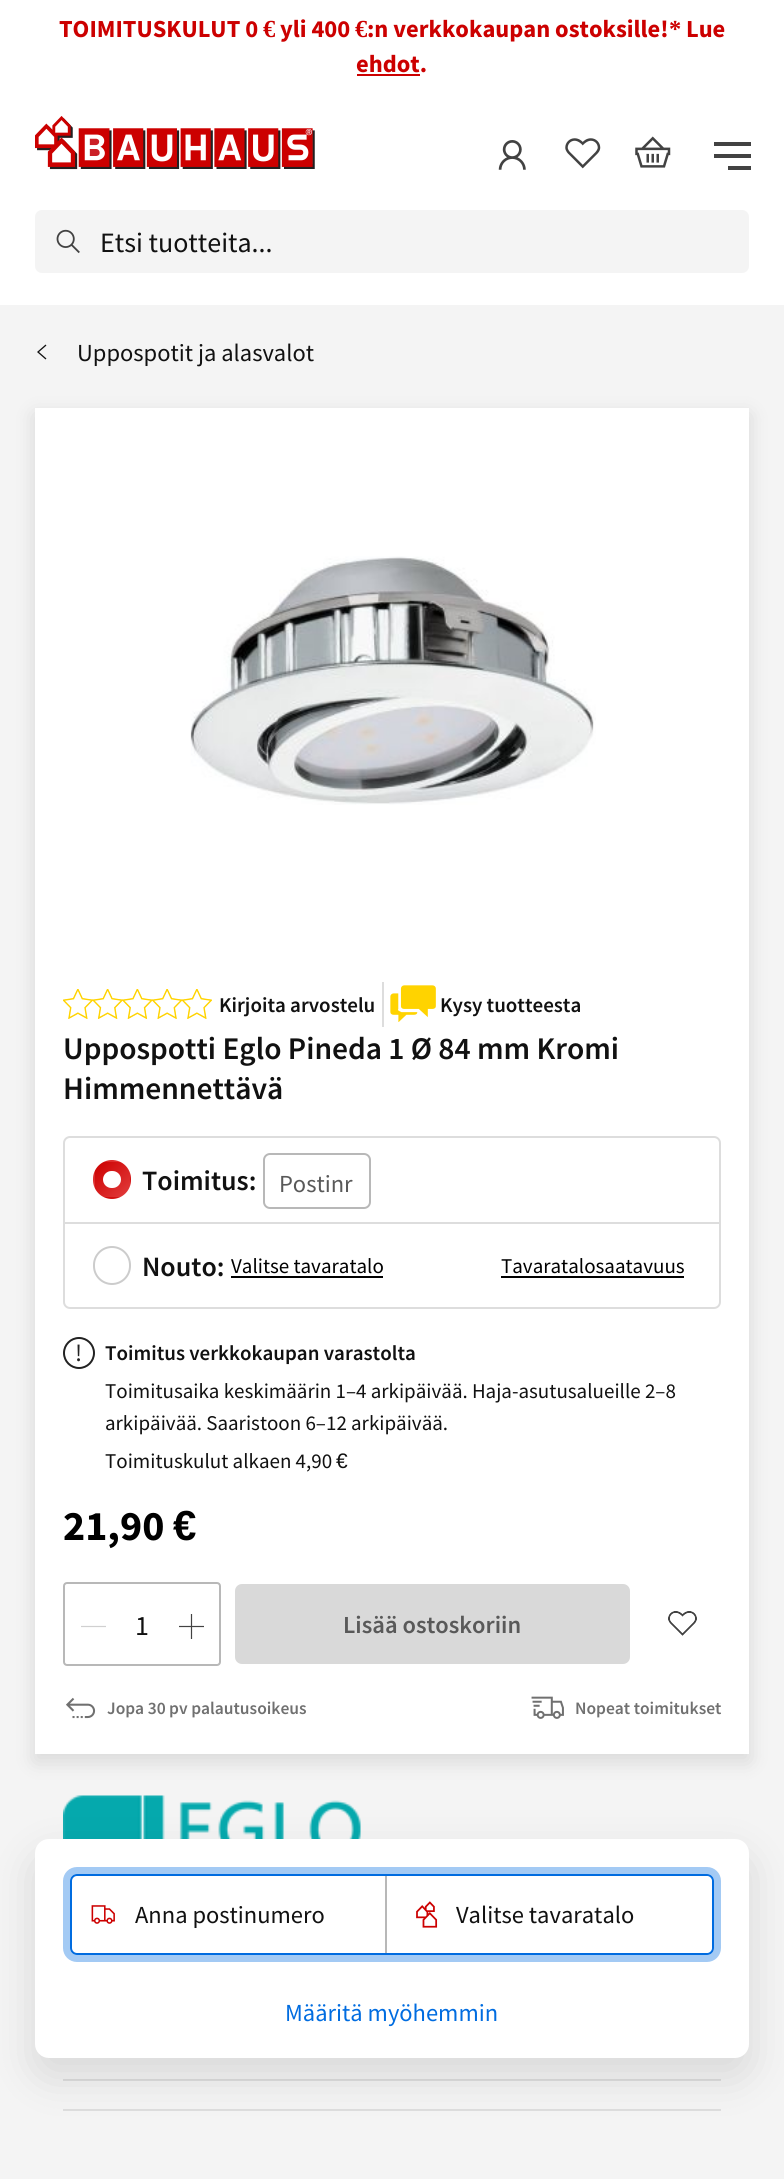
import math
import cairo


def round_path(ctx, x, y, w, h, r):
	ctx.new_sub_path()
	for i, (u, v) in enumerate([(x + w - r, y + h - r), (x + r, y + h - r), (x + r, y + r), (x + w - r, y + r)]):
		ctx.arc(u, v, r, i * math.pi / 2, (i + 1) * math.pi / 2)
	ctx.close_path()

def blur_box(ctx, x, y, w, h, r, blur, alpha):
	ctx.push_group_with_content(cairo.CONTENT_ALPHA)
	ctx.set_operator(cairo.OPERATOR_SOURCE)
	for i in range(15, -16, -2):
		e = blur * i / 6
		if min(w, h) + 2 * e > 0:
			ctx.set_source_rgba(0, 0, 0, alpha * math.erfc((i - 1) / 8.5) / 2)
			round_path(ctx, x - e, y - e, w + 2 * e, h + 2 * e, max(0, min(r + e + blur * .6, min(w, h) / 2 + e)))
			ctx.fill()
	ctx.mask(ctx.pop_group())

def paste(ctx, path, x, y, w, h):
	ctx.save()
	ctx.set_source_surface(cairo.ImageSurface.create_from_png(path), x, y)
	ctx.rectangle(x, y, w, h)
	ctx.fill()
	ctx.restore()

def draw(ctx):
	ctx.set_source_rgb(0.957, 0.957, 0.957)
	ctx.paint()
	ctx.set_source_rgb(1, 1, 1)
	ctx.rectangle(0, 0, 784, 305)
	ctx.fill()
	ctx.select_font_face('Source Sans Pro', cairo.FONT_SLANT_NORMAL, cairo.FONT_WEIGHT_BOLD)
	ctx.set_font_size(24.5)
	ctx.set_source_rgb(0.8, 0, 0)
	ctx.move_to(59, 37)
	ctx.show_text('TOIMITUSKULUT 0')
	ctx.select_font_face('Liberation Serif', cairo.FONT_SLANT_NORMAL, cairo.FONT_WEIGHT_BOLD)
	ctx.move_to(263, 37)
	ctx.show_text('€')
	ctx.select_font_face('Source Sans Pro', cairo.FONT_SLANT_NORMAL, cairo.FONT_WEIGHT_BOLD)
	ctx.move_to(280, 37)
	ctx.show_text('yli 400')
	ctx.select_font_face('Liberation Serif', cairo.FONT_SLANT_NORMAL, cairo.FONT_WEIGHT_BOLD)
	ctx.move_to(355, 37)
	ctx.show_text('€')
	ctx.select_font_face('Source Sans Pro', cairo.FONT_SLANT_NORMAL, cairo.FONT_WEIGHT_BOLD)
	ctx.move_to(367, 37)
	ctx.show_text(':n verkkokaupan ostoksille!')
	ctx.select_font_face('Liberation Serif', cairo.FONT_SLANT_NORMAL, cairo.FONT_WEIGHT_BOLD)
	ctx.move_to(669, 37)
	ctx.show_text('*')
	ctx.select_font_face('Source Sans Pro', cairo.FONT_SLANT_NORMAL, cairo.FONT_WEIGHT_BOLD)
	ctx.move_to(686, 37)
	ctx.show_text('Lue')
	ctx.move_to(356, 72)
	ctx.show_text('ehdot.')
	ctx.rectangle(357, 74, 63, 2)
	ctx.fill()
	paste(ctx, 'media/1.png', 35, 116, 280, 54)
	paste(ctx, 'media/2.png', 498, 140, 28, 30)
	paste(ctx, 'media/3.png', 565, 138, 36, 31)
	paste(ctx, 'media/4.png', 635, 136, 36, 32)
	ctx.set_source_rgb(0.259, 0.259, 0.259)
	ctx.rectangle(714, 142, 37, 4)
	ctx.rectangle(714, 154, 37, 4)
	ctx.rectangle(728, 166, 23, 4)
	ctx.fill()
	ctx.set_source_rgb(0.957, 0.957, 0.957)
	round_path(ctx, 35, 210, 714, 63, 7)
	ctx.fill()
	paste(ctx, 'media/5.png', 56, 229, 24, 25)
	ctx.select_font_face('Source Sans Pro')
	ctx.set_font_size(28)
	ctx.set_source_rgb(0.067, 0.067, 0.067)
	ctx.move_to(100, 252)
	ctx.show_text('Etsi tuotteita...')
	ctx.new_path()
	ctx.move_to(46, 345)
	ctx.line_to(38, 352)
	ctx.line_to(46, 359)
	ctx.set_line_width(1.3)
	ctx.stroke()
	ctx.set_font_size(24.5)
	ctx.move_to(77, 361)
	ctx.show_text('Uppospotit ja alasvalot')
	ctx.set_source_rgb(0, 0, 0)
	blur_box(ctx, 35, 415, 714, 1346, 0, 10.5, 0.12)
	ctx.set_source_rgb(1, 1, 1)
	ctx.rectangle(35, 408, 714, 1346)
	ctx.fill()
	paste(ctx, 'media/6.png', 190, 556, 406, 249)
	paste(ctx, 'media/7.png', 63, 989, 149, 30)
	paste(ctx, 'media/8.png', 63, 989, 149, 30)
	ctx.select_font_face('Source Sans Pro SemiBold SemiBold')
	ctx.set_font_size(21)
	ctx.set_source_rgb(0.067, 0.067, 0.067)
	ctx.move_to(219, 1012)
	ctx.show_text('Kirjoita arvostelu')
	ctx.set_source_rgb(0.867, 0.867, 0.867)
	ctx.rectangle(382, 982, 2, 45)
	ctx.fill()
	paste(ctx, 'media/9.png', 390, 985, 46, 37)
	ctx.set_source_rgb(0.067, 0.067, 0.067)
	ctx.move_to(440, 1012)
	ctx.show_text('Kysy tuotteesta')
	ctx.set_font_size(31.5)
	ctx.move_to(63, 1059)
	ctx.show_text('Uppospotti Eglo Pineda 1 Ø 84 mm Kromi')
	ctx.move_to(63, 1099)
	ctx.show_text('Himmennettävä')
	round_path(ctx, 64, 1137, 656, 171, 6)
	ctx.set_source_rgb(0.867, 0.867, 0.867)
	ctx.set_line_width(2)
	ctx.stroke()
	ctx.rectangle(65, 1222, 654, 2)
	ctx.fill()
	ctx.save()
	round_path(ctx, 93, 1160, 38, 39, 19)
	ctx.clip()
	gradient = cairo.LinearGradient(95, 1127, 130, 1162)
	gradient.add_color_stop_rgba(0, 0.8, 0, 0, 1)
	gradient.add_color_stop_rgba(1, 0.886, 0.239, 0.239, 1)
	ctx.set_source(gradient)
	ctx.rectangle(95, 1160, 26, 2)
	ctx.fill()
	gradient = cairo.LinearGradient(60, 1162, 95, 1197)
	gradient.add_color_stop_rgba(0, 0.8, 0, 0, 1)
	gradient.add_color_stop_rgba(1, 0.886, 0.239, 0.239, 1)
	ctx.set_source(gradient)
	ctx.rectangle(93, 1162, 2, 35)
	ctx.fill()
	gradient = cairo.LinearGradient(95, 1162, 130, 1197)
	gradient.add_color_stop_rgba(0, 0.8, 0, 0, 1)
	gradient.add_color_stop_rgba(1, 0.886, 0.239, 0.239, 1)
	ctx.set_source(gradient)
	ctx.rectangle(95, 1162, 35, 35)
	ctx.fill()
	gradient = cairo.LinearGradient(130, 1162, 165, 1197)
	gradient.add_color_stop_rgba(0, 0.8, 0, 0, 1)
	gradient.add_color_stop_rgba(1, 0.886, 0.239, 0.239, 1)
	ctx.set_source(gradient)
	ctx.rectangle(130, 1173, 1, 13)
	ctx.fill()
	gradient = cairo.LinearGradient(95, 1197, 130, 1232)
	gradient.add_color_stop_rgba(0, 0.8, 0, 0, 1)
	gradient.add_color_stop_rgba(1, 0.886, 0.239, 0.239, 1)
	ctx.set_source(gradient)
	ctx.rectangle(95, 1197, 26, 2)
	ctx.fill()
	ctx.restore()
	ctx.set_font_size(28)
	ctx.set_source_rgb(0.067, 0.067, 0.067)
	ctx.move_to(142, 1190)
	ctx.show_text('Toimitus:')
	ctx.set_source_rgb(1, 1, 1)
	round_path(ctx, 103, 1171, 18, 17, 8.5)
	ctx.fill()
	round_path(ctx, 264, 1154, 106, 54, 6)
	ctx.set_source_rgb(0.722, 0.722, 0.722)
	ctx.stroke()
	ctx.select_font_face('Source Sans Pro')
	ctx.set_font_size(24.5)
	ctx.set_source_rgb(0.349, 0.349, 0.349)
	ctx.move_to(279, 1192)
	ctx.show_text('Postinr')
	round_path(ctx, 94, 1247, 36, 37, 18)
	ctx.set_source_rgb(0.8, 0.8, 0.8)
	ctx.stroke()
	ctx.select_font_face('Source Sans Pro SemiBold SemiBold')
	ctx.set_font_size(28)
	ctx.set_source_rgb(0.067, 0.067, 0.067)
	ctx.move_to(142, 1276)
	ctx.show_text('Nouto:')
	ctx.select_font_face('Source Sans Pro')
	ctx.set_font_size(21)
	ctx.set_source_rgb(0, 0, 0)
	ctx.move_to(231, 1273)
	ctx.show_text('Valitse tavaratalo')
	ctx.rectangle(231, 1276, 152, 2)
	ctx.fill()
	ctx.move_to(501, 1273)
	ctx.show_text('Tavaratalosaatavuus')
	ctx.rectangle(501, 1276, 183, 2)
	ctx.fill()
	ctx.arc(79, 1353, 15, 0, 2 * math.pi)
	ctx.set_source_rgb(0.133, 0.133, 0.133)
	ctx.stroke()
	ctx.set_font_size(24.5)
	ctx.move_to(75, 1361)
	ctx.show_text('!')
	ctx.select_font_face('Source Sans Pro SemiBold SemiBold')
	ctx.set_font_size(21)
	ctx.set_source_rgb(0.067, 0.067, 0.067)
	ctx.move_to(105, 1360)
	ctx.show_text('Toimitus verkkokaupan varastolta')
	ctx.select_font_face('Source Sans Pro')
	for x, y, s in [
		(105, 1398, 'Toimitusaika keskimäärin 1–4 arkipäivää. Haja-asutusalueille 2–8'),
		(105, 1430, 'arkipäivää. Saaristoon 6–12 arkipäivää.'),
		(105, 1468, 'Toimituskulut alkaen 4,90'),
	]:
		ctx.move_to(x, y)
		ctx.show_text(s)
	ctx.select_font_face('Liberation Sans')
	ctx.move_to(336, 1468)
	ctx.show_text('€')
	ctx.select_font_face('Source Sans Pro', cairo.FONT_SLANT_NORMAL, cairo.FONT_WEIGHT_BOLD)
	ctx.set_font_size(42)
	ctx.set_source_rgb(0, 0, 0)
	ctx.move_to(63, 1540)
	ctx.show_text('21,90')
	ctx.select_font_face('Liberation Sans', cairo.FONT_SLANT_NORMAL, cairo.FONT_WEIGHT_BOLD)
	ctx.move_to(173, 1540)
	ctx.show_text('€')
	round_path(ctx, 64, 1583, 156, 82, 3)
	ctx.set_source_rgb(0.722, 0.722, 0.722)
	ctx.stroke()
	ctx.save()
	ctx.rectangle(81, 1614, 26, 26)
	ctx.clip()
	ctx.new_path()
	ctx.move_to(79.5, 1626.5)
	ctx.line_to(106, 1626.5)
	ctx.close_path()
	ctx.set_source_rgb(0.816, 0.816, 0.816)
	ctx.set_line_width(1.2)
	ctx.stroke()
	ctx.restore()
	ctx.select_font_face('Source Sans Pro')
	ctx.set_font_size(28)
	ctx.set_source_rgb(0.067, 0.067, 0.067)
	ctx.move_to(135, 1635)
	ctx.show_text('1')
	ctx.save()
	ctx.rectangle(179, 1614, 26, 26)
	ctx.clip()
	ctx.new_path()
	ctx.move_to(177.5, 1626.5)
	ctx.line_to(204, 1626.5)
	ctx.close_path()
	ctx.move_to(191.5, 1612.5)
	ctx.line_to(191.5, 1639)
	ctx.close_path()
	ctx.set_source_rgb(0.259, 0.259, 0.259)
	ctx.set_line_width(1.2)
	ctx.stroke()
	ctx.restore()
	ctx.set_source_rgb(0.851, 0.851, 0.851)
	round_path(ctx, 236, 1585, 393, 78, 6)
	ctx.fill_preserve()
	ctx.stroke()
	ctx.select_font_face('Source Sans Pro SemiBold SemiBold')
	ctx.set_font_size(24.5)
	ctx.set_source_rgb(0.349, 0.349, 0.349)
	ctx.move_to(343, 1633)
	ctx.show_text('Lisää ostoskoriin')
	paste(ctx, 'media/10.png', 668, 1611, 29, 25)
	paste(ctx, 'media/11.png', 66, 1697, 30, 22)
	ctx.set_font_size(17.5)
	ctx.set_source_rgb(0.439, 0.439, 0.439)
	ctx.move_to(107, 1714)
	ctx.show_text('Jopa 30 pv palautusoikeus')
	paste(ctx, 'media/12.png', 531, 1696, 33, 23)
	ctx.move_to(575, 1714)
	ctx.show_text('Nopeat toimitukset')
	ctx.set_source_rgb(0.867, 0.867, 0.867)
	ctx.rectangle(63, 2079, 658, 2)
	ctx.fill()
	paste(ctx, 'media/13.png', 63, 1795, 298, 44)
	ctx.rectangle(63, 2109, 658, 2)
	ctx.fill()
	ctx.set_source_rgb(0, 0, 0)
	blur_box(ctx, 35, 1857, 714, 219, 14, 22, 0.12)
	ctx.set_source_rgb(1, 1, 1)
	round_path(ctx, 35, 1839, 714, 219, 14)
	ctx.fill()
	round_path(ctx, 66.5, 1870.5, 651, 88, 10.5)
	ctx.set_source_rgb(0.639, 0.792, 0.957)
	ctx.set_line_width(7)
	ctx.stroke()
	round_path(ctx, 71, 1875, 642, 79, 6)
	ctx.set_source_rgb(0, 0.424, 0.878)
	ctx.set_line_width(2)
	ctx.stroke()
	ctx.set_source_rgb(0.722, 0.722, 0.722)
	ctx.rectangle(385, 1876, 2, 77)
	ctx.fill()
	paste(ctx, 'media/14.png', 91, 1905, 24, 19)
	ctx.select_font_face('Source Sans Pro')
	ctx.set_font_size(24.5)
	ctx.set_source_rgb(0.067, 0.067, 0.067)
	ctx.move_to(135, 1923)
	ctx.show_text('Anna postinumero')
	ctx.set_source_rgb(1, 1, 1)
	ctx.new_path()
	ctx.move_to(397, 1876)
	ctx.line_to(705, 1876)
	ctx.curve_to(709, 1876, 712, 1879, 712, 1883)
	ctx.line_to(712, 1946)
	ctx.curve_to(712, 1950, 709, 1953, 705, 1953)
	ctx.line_to(397, 1953)
	ctx.close_path()
	ctx.fill()
	paste(ctx, 'media/15.png', 416, 1901, 22, 27)
	ctx.set_source_rgb(0.067, 0.067, 0.067)
	ctx.move_to(456, 1923)
	ctx.show_text('Valitse tavaratalo')
	ctx.set_source_rgb(0, 0.424, 0.878)
	ctx.move_to(285, 2021)
	ctx.show_text('Määritä myöhemmin')


surface = cairo.ImageSurface(cairo.FORMAT_RGB24, 784, 2179)
ctx = cairo.Context(surface)
options = cairo.FontOptions()
options.set_hint_metrics(cairo.HINT_METRICS_OFF)
options.set_hint_style(cairo.HINT_STYLE_NONE)
ctx.set_font_options(options)
ctx.set_miter_limit(4)
draw(ctx)
surface.write_to_png('image.png')
